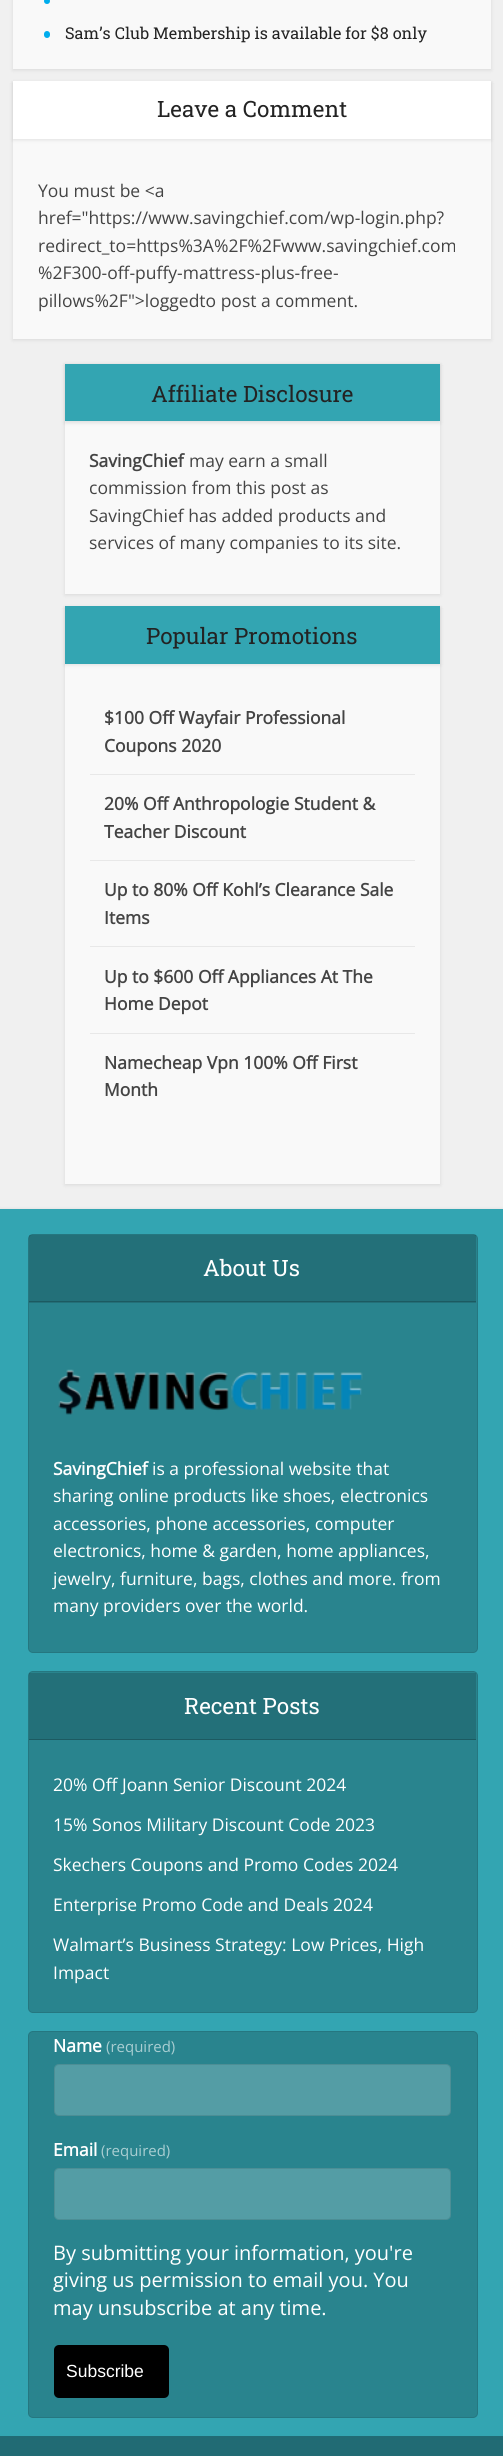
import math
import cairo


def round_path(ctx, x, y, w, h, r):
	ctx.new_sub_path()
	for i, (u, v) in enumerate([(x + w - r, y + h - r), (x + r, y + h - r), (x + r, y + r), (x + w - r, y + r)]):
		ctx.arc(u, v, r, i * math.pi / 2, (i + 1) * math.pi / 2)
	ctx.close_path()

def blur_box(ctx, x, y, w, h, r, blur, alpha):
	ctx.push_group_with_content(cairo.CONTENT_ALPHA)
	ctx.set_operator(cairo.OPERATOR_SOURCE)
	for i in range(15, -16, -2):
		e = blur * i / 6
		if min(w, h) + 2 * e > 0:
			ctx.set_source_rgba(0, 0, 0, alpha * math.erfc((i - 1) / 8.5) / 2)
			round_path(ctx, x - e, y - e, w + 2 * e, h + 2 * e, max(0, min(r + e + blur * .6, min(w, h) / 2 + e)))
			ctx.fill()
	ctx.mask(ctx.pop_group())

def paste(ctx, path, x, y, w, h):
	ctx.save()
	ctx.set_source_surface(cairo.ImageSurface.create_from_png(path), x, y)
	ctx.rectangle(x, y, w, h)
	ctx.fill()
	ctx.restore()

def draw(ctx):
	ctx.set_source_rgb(0.941, 0.941, 0.941)
	ctx.paint()
	ctx.set_source_rgb(0, 0, 0)
	blur_box(ctx, 13, -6, 478, 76, 0, 2, 0.1)
	ctx.set_source_rgb(0.976, 0.976, 0.976)
	ctx.rectangle(13, 0, 478, 69)
	ctx.fill()
	ctx.set_source_rgb(0, 0.678, 0.929)
	ctx.arc(47, 1, 3, 0, 2 * math.pi)
	ctx.fill()
	round_path(ctx, 44, 31, 6, 7, 3)
	ctx.fill()
	ctx.select_font_face('Roboto Slab')
	ctx.set_font_size(16.25)
	ctx.set_source_rgb(0.137, 0.137, 0.137)
	ctx.move_to(65, 39)
	ctx.show_text('Sam’s Club Membership is available for $8 only')
	ctx.set_source_rgb(0, 0, 0)
	blur_box(ctx, 13, 83, 478, 257, 0, 2, 0.1)
	ctx.set_source_rgb(0.976, 0.976, 0.976)
	ctx.rectangle(13, 139, 478, 200)
	ctx.fill()
	ctx.set_source_rgb(0, 0, 0)
	blur_box(ctx, 13, 83, 478, 57, 0, 2, 0.1)
	ctx.set_source_rgb(1, 1, 1)
	ctx.rectangle(13, 81, 478, 58)
	ctx.fill()
	ctx.set_font_size(22.5)
	ctx.set_source_rgb(0.137, 0.137, 0.137)
	ctx.move_to(157, 117)
	ctx.show_text('Leave a Comment')
	ctx.select_font_face('Open Sans')
	ctx.set_font_size(17.5)
	ctx.set_source_rgb(0.267, 0.267, 0.267)
	for x, y, s in [
		(38, 197, 'You must be <a'),
		(38, 224, 'href="https://www.savingchief.com/wp-login.php?'),
		(38, 252, 'redirect_to=https%3A%2F%2Fwww.savingchief.com'),
		(38, 279, '%2F300-off-puffy-mattress-plus-free-'),
		(38, 307, 'pillows%2F">loggedto post a comment.'),
	]:
		ctx.move_to(x, y)
		ctx.show_text(s)
	ctx.set_source_rgb(0, 0, 0)
	blur_box(ctx, 65, 365, 375, 230, 0, 2, 0.1)
	ctx.set_source_rgb(0.976, 0.976, 0.976)
	ctx.rectangle(65, 421, 375, 173)
	ctx.fill()
	ctx.set_source_rgb(0, 0, 0)
	blur_box(ctx, 65, 365, 375, 58, 0, 2, 0.1)
	ctx.set_source_rgb(0.2, 0.647, 0.698)
	ctx.rectangle(65, 364, 375, 57)
	ctx.fill()
	ctx.select_font_face('Roboto Slab')
	ctx.set_font_size(22.5)
	ctx.set_source_rgb(0.137, 0.137, 0.137)
	ctx.move_to(151, 402)
	ctx.show_text('Affiliate Disclosure')
	ctx.select_font_face('Open Sans', cairo.FONT_SLANT_NORMAL, cairo.FONT_WEIGHT_BOLD)
	ctx.set_font_size(17.5)
	ctx.set_source_rgb(0.267, 0.267, 0.267)
	ctx.move_to(89, 467)
	ctx.show_text('SavingChief')
	ctx.select_font_face('Open Sans')
	for x, y, s in [
		(189, 467, 'may earn a small'),
		(89, 494, 'commission from this post as'),
		(89, 522, 'SavingChief has added products and'),
		(89, 549, 'services of many companies to its site.'),
	]:
		ctx.move_to(x, y)
		ctx.show_text(s)
	ctx.set_source_rgb(0, 0, 0)
	blur_box(ctx, 65, 608, 375, 577, 0, 2, 0.1)
	ctx.set_source_rgb(0.976, 0.976, 0.976)
	ctx.rectangle(65, 664, 375, 520)
	ctx.fill()
	ctx.set_source_rgb(0, 0, 0)
	blur_box(ctx, 65, 608, 375, 57, 0, 2, 0.1)
	ctx.set_source_rgb(0.2, 0.647, 0.698)
	ctx.rectangle(65, 606, 375, 58)
	ctx.fill()
	ctx.select_font_face('Roboto Slab')
	ctx.set_font_size(22.5)
	ctx.set_source_rgb(0.137, 0.137, 0.137)
	ctx.move_to(146, 644)
	ctx.show_text('Popular Promotions')
	ctx.set_source_rgb(0.91, 0.91, 0.91)
	ctx.rectangle(90, 774, 325, 1)
	ctx.fill()
	ctx.select_font_face('Open Sans', cairo.FONT_SLANT_NORMAL, cairo.FONT_WEIGHT_BOLD)
	ctx.set_font_size(17.5)
	ctx.set_source_rgb(0.267, 0.267, 0.267)
	ctx.move_to(104, 724)
	ctx.show_text('$100 Off Wayfair Professional')
	ctx.move_to(104, 752)
	ctx.show_text('Coupons 2020')
	ctx.set_source_rgb(0.91, 0.91, 0.91)
	ctx.rectangle(90, 860, 325, 1)
	ctx.fill()
	ctx.set_source_rgb(0.267, 0.267, 0.267)
	ctx.move_to(104, 810)
	ctx.show_text('20% Off Anthropologie Student &')
	ctx.move_to(104, 838)
	ctx.show_text('Teacher Discount')
	ctx.set_source_rgb(0.91, 0.91, 0.91)
	ctx.rectangle(90, 946, 325, 1)
	ctx.fill()
	ctx.set_source_rgb(0.267, 0.267, 0.267)
	ctx.move_to(104, 896)
	ctx.show_text('Up to 80% Off Kohl’s Clearance Sale')
	ctx.move_to(104, 924)
	ctx.show_text('Items')
	ctx.set_source_rgb(0.91, 0.91, 0.91)
	ctx.rectangle(90, 1033, 325, 1)
	ctx.fill()
	ctx.set_source_rgb(0.267, 0.267, 0.267)
	for x, y, s in [
		(104, 983, 'Up to $600 Off Appliances At The'),
		(104, 1010, 'Home Depot'),
		(104, 1069, 'Namecheap Vpn 100% Off First'),
		(104, 1096, 'Month'),
	]:
		ctx.move_to(x, y)
		ctx.show_text(s)
	ctx.set_source_rgb(0, 0, 0)
	blur_box(ctx, 0, 1211, 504, 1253, 0, 2.5, 0.2)
	ctx.set_source_rgb(0.2, 0.647, 0.698)
	ctx.rectangle(0, 1209, 503, 1227)
	ctx.fill()
	ctx.set_source_rgb(0.161, 0.518, 0.557)
	round_path(ctx, 28, 1234, 450, 419, 5)
	ctx.fill()
	round_path(ctx, 28.5, 1234.5, 449, 418, 4.5)
	ctx.set_source_rgba(0, 0, 0, 0.1)
	ctx.set_line_width(1)
	ctx.stroke()
	ctx.set_source_rgba(0, 0, 0, 0.15)
	ctx.rectangle(29, 1235, 447, 68)
	ctx.fill()
	ctx.set_source_rgb(0.11, 0.353, 0.38)
	ctx.rectangle(29, 1301, 447, 1)
	ctx.fill()
	ctx.select_font_face('Roboto Slab')
	ctx.set_font_size(22.5)
	ctx.set_source_rgb(1, 1, 1)
	ctx.move_to(203, 1276)
	ctx.show_text('About Us')
	paste(ctx, 'media/1.png', 58, 1369, 305, 46)
	ctx.select_font_face('Open Sans', cairo.FONT_SLANT_NORMAL, cairo.FONT_WEIGHT_BOLD)
	ctx.set_font_size(17.5)
	ctx.move_to(53, 1475)
	ctx.show_text('SavingChief')
	ctx.select_font_face('Open Sans')
	for x, y, s in [
		(152, 1475, 'is a professional website that'),
		(53, 1502, 'sharing online products like shoes, electronics'),
		(53, 1530, 'accessories, phone accessories, computer'),
		(53, 1557, 'electronics, home & garden, home appliances,'),
		(53, 1585, 'jewelry, furniture, bags, clothes and more. from'),
		(53, 1612, 'many providers over the world.'),
	]:
		ctx.move_to(x, y)
		ctx.show_text(s)
	ctx.set_source_rgb(0.161, 0.518, 0.557)
	round_path(ctx, 28, 1671, 450, 342, 5)
	ctx.fill()
	round_path(ctx, 28.5, 1671.5, 449, 341, 4.5)
	ctx.set_source_rgba(0, 0, 0, 0.1)
	ctx.stroke()
	ctx.set_source_rgba(0, 0, 0, 0.15)
	ctx.rectangle(29, 1673, 447, 66)
	ctx.fill()
	ctx.set_source_rgb(0.11, 0.353, 0.38)
	ctx.rectangle(29, 1739, 447, 1)
	ctx.fill()
	ctx.select_font_face('Roboto Slab')
	ctx.set_font_size(22.5)
	ctx.set_source_rgb(1, 1, 1)
	ctx.move_to(184, 1714)
	ctx.show_text('Recent Posts')
	ctx.select_font_face('Open Sans')
	ctx.set_font_size(17.5)
	for x, y, s in [
		(53, 1791, '20% Off Joann Senior Discount 2024'),
		(53, 1831, '15% Sonos Military Discount Code 2023'),
		(53, 1871, 'Skechers Coupons and Promo Codes 2024'),
		(53, 1911, 'Enterprise Promo Code and Deals 2024'),
		(53, 1951, 'Walmart’s Business Strategy: Low Prices, High'),
		(53, 1979, 'Impact'),
	]:
		ctx.move_to(x, y)
		ctx.show_text(s)
	ctx.set_source_rgb(0.161, 0.518, 0.557)
	round_path(ctx, 28, 2031, 450, 387, 5)
	ctx.fill()
	round_path(ctx, 28.5, 2031.5, 449, 386, 4.5)
	ctx.set_source_rgba(0, 0, 0, 0.1)
	ctx.stroke()
	ctx.select_font_face('Open Sans', cairo.FONT_SLANT_NORMAL, cairo.FONT_WEIGHT_BOLD)
	ctx.set_source_rgb(1, 1, 1)
	ctx.move_to(53, 2052)
	ctx.show_text('Name')
	ctx.select_font_face('Open Sans')
	ctx.set_font_size(15)
	ctx.set_source_rgb(0.663, 0.808, 0.824)
	ctx.move_to(106, 2052)
	ctx.show_text('(required)')
	ctx.set_source_rgb(0.329, 0.616, 0.647)
	round_path(ctx, 54, 2064, 397, 52, 5)
	ctx.fill()
	round_path(ctx, 54.5, 2064.5, 396, 51, 4.5)
	ctx.set_source_rgba(0, 0, 0, 0.1)
	ctx.stroke()
	ctx.select_font_face('Open Sans', cairo.FONT_SLANT_NORMAL, cairo.FONT_WEIGHT_BOLD)
	ctx.set_font_size(17.5)
	ctx.set_source_rgb(1, 1, 1)
	ctx.move_to(53, 2156)
	ctx.show_text('Email')
	ctx.select_font_face('Open Sans')
	ctx.set_font_size(15)
	ctx.set_source_rgb(0.663, 0.808, 0.824)
	ctx.move_to(101, 2156)
	ctx.show_text('(required)')
	ctx.set_source_rgb(0.329, 0.616, 0.647)
	round_path(ctx, 54, 2168, 397, 52, 5)
	ctx.fill()
	round_path(ctx, 54.5, 2168.5, 396, 51, 4.5)
	ctx.set_source_rgba(0, 0, 0, 0.1)
	ctx.stroke()
	ctx.set_font_size(20)
	ctx.set_source_rgb(1, 1, 1)
	for x, y, s in [
		(53, 2260, 'By submitting your information, you\'re'),
		(53, 2287, 'giving us permission to email you. You'),
		(53, 2315, 'may unsubscribe at any time.'),
	]:
		ctx.move_to(x, y)
		ctx.show_text(s)
	ctx.set_source_rgb(0, 0, 0)
	round_path(ctx, 54, 2345, 115, 53, 5)
	ctx.fill()
	ctx.select_font_face('Liberation Sans')
	ctx.set_font_size(17.5)
	ctx.set_source_rgb(1, 1, 1)
	ctx.move_to(66, 2377)
	ctx.show_text('Subscribe')
	ctx.set_source_rgb(0.129, 0.42, 0.455)
	ctx.rectangle(0, 2436, 503, 20)
	ctx.fill()


surface = cairo.ImageSurface(cairo.FORMAT_RGB24, 503, 2456)
ctx = cairo.Context(surface)
options = cairo.FontOptions()
options.set_hint_metrics(cairo.HINT_METRICS_OFF)
options.set_hint_style(cairo.HINT_STYLE_NONE)
ctx.set_font_options(options)
ctx.set_miter_limit(4)
draw(ctx)
surface.write_to_png('image.png')
